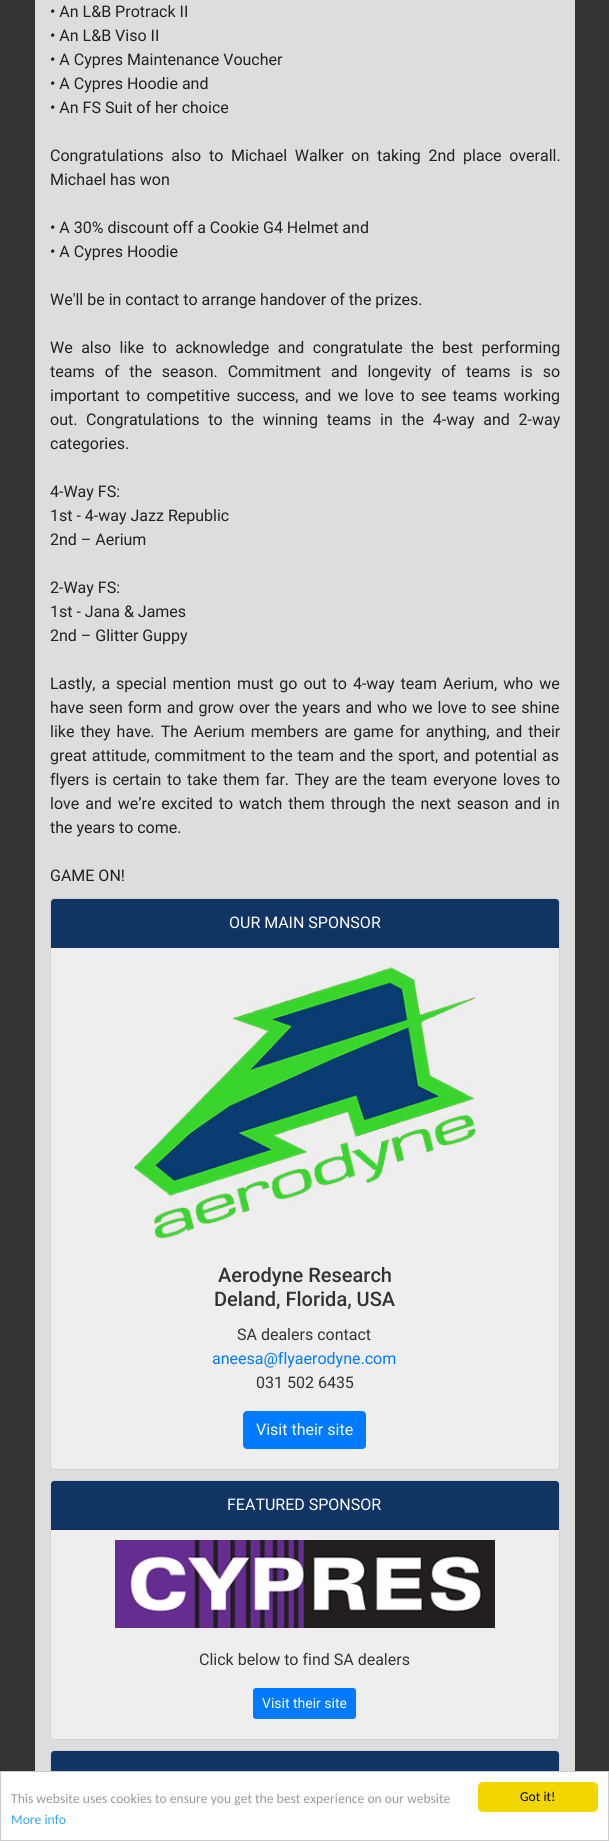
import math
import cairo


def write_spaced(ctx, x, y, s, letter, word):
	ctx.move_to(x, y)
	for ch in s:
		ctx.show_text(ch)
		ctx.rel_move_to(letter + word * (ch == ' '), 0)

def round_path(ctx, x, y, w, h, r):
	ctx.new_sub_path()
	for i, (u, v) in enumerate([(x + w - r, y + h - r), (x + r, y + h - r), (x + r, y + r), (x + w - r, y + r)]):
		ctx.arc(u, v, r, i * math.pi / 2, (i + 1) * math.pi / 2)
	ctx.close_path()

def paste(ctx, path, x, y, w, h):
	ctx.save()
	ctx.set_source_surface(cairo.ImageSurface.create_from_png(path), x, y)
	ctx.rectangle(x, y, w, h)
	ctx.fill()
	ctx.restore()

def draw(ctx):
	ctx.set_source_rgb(0.2, 0.2, 0.2)
	ctx.paint()
	ctx.set_source_rgb(0.867, 0.867, 0.867)
	ctx.rectangle(35, 0, 540, 1771)
	ctx.fill()
	ctx.select_font_face('Roboto')
	ctx.set_font_size(16)
	ctx.set_source_rgb(0.133, 0.133, 0.133)
	for x, y, s in [
		(50, 17, '• An L&B Protrack II'),
		(50, 41, '• An L&B Viso II'),
		(50, 65, '• A Cypres Maintenance Voucher'),
		(50, 89, '• A Cypres Hoodie and'),
		(50, 113, '• An FS Suit of her choice'),
	]:
		ctx.move_to(x, y)
		ctx.show_text(s)
	write_spaced(ctx, 50, 161, 'Congratulations also to Michael Walker on taking 2nd place overall.', 0, 3.75)
	for x, y, s in [
		(50, 185, 'Michael has won'),
		(50, 233, '• A 30% discount off a Cookie G4 Helmet and'),
		(50, 257, '• A Cypres Hoodie'),
		(50, 305, 'We\'ll be in contact to arrange handover of the prizes.'),
	]:
		ctx.move_to(x, y)
		ctx.show_text(s)
	write_spaced(ctx, 50, 353, 'We also like to acknowledge and congratulate the best performing', 0, 4.5)
	write_spaced(ctx, 50, 377, 'teams of the season. Commitment and longevity of teams is so', 0, 6)
	write_spaced(ctx, 50, 401, 'important to competitive success, and we love to see teams working', 0, 2.4)
	write_spaced(ctx, 50, 425, 'out. Congratulations to the winning teams in the 4-way and 2-way', 0, 4.75)
	for x, y, s in [
		(50, 449, 'categories.'),
		(50, 497, '4-Way FS:'),
		(50, 521, '1st - 4-way Jazz Republic'),
		(50, 545, '2nd – Aerium'),
		(50, 593, '2-Way FS:'),
		(50, 617, '1st - Jana & James'),
		(50, 641, '2nd – Glitter Guppy'),
	]:
		ctx.move_to(x, y)
		ctx.show_text(s)
	write_spaced(ctx, 50, 689, 'Lastly, a special mention must go out to 4-way team Aerium, who we', 0, 2)
	write_spaced(ctx, 50, 713, 'have seen form and grow over the years and who we love to see shine', 0, 1)
	write_spaced(ctx, 50, 737, 'like they have. The Aerium members are game for anything, and their', 0, 2.1)
	write_spaced(ctx, 50, 761, 'great attitude, commitment to the team and the sport, and potential as', 0, 1)
	write_spaced(ctx, 50, 785, 'flyers is certain to take them far. They are the team everyone loves to', 0, 1.6)
	write_spaced(ctx, 50, 809, 'love and we’re excited to watch them through the next season and in', 0, 2)
	ctx.move_to(50, 833)
	ctx.show_text('the years to come.')
	ctx.move_to(50, 881)
	ctx.show_text('GAME ON!')
	ctx.set_source_rgb(0.933, 0.933, 0.933)
	round_path(ctx, 50, 898, 510, 572, 4)
	ctx.fill()
	round_path(ctx, 50.5, 898.5, 509, 571, 3.5)
	ctx.set_source_rgba(0, 0, 0, 0.12)
	ctx.set_line_width(1)
	ctx.stroke()
	ctx.set_source_rgb(0.063, 0.204, 0.392)
	ctx.new_path()
	ctx.move_to(54, 899)
	ctx.line_to(556, 899)
	ctx.curve_to(557.5, 899, 559, 900.5, 559, 902)
	ctx.line_to(559, 948)
	ctx.line_to(51, 948)
	ctx.line_to(51, 902)
	ctx.curve_to(51, 900.5, 52.5, 899, 54, 899)
	ctx.close_path()
	ctx.fill()
	ctx.set_source_rgb(0.055, 0.18, 0.345)
	ctx.rectangle(51, 947, 508, 1)
	ctx.fill()
	ctx.set_source_rgb(1, 1, 1)
	ctx.move_to(229, 928)
	ctx.show_text('OUR MAIN SPONSOR')
	paste(ctx, 'media/1.png', 130, 965, 350, 274)
	ctx.select_font_face('Roboto Medium')
	ctx.set_font_size(20)
	ctx.set_source_rgb(0.2, 0.2, 0.2)
	ctx.move_to(218, 1282)
	ctx.show_text('Aerodyne Research')
	ctx.move_to(214, 1306)
	ctx.show_text('Deland, Florida, USA')
	ctx.select_font_face('Roboto')
	ctx.set_font_size(16)
	ctx.move_to(237, 1340)
	ctx.show_text('SA dealers contact')
	ctx.set_source_rgb(0, 0.482, 1)
	ctx.move_to(212, 1364)
	ctx.show_text('aneesa@flyaerodyne.com')
	ctx.set_source_rgb(0.2, 0.2, 0.2)
	ctx.move_to(256, 1388)
	ctx.show_text('031 502 6435')
	ctx.set_source_rgb(0, 0.482, 1)
	round_path(ctx, 243.5, 1411.5, 122, 37, 3.5)
	ctx.fill_preserve()
	ctx.stroke()
	ctx.set_source_rgb(1, 1, 1)
	ctx.move_to(256, 1435)
	ctx.show_text('Visit their site')
	ctx.set_source_rgb(0.933, 0.933, 0.933)
	round_path(ctx, 50, 1480, 510, 260, 4)
	ctx.fill()
	round_path(ctx, 50.5, 1480.5, 509, 259, 3.5)
	ctx.set_source_rgba(0, 0, 0, 0.12)
	ctx.stroke()
	ctx.set_source_rgb(0.063, 0.204, 0.392)
	ctx.new_path()
	ctx.move_to(54, 1481)
	ctx.line_to(556, 1481)
	ctx.curve_to(557.5, 1481, 559, 1482.5, 559, 1484)
	ctx.line_to(559, 1530)
	ctx.line_to(51, 1530)
	ctx.line_to(51, 1484)
	ctx.curve_to(51, 1482.5, 52.5, 1481, 54, 1481)
	ctx.close_path()
	ctx.fill()
	ctx.set_source_rgb(0.055, 0.18, 0.345)
	ctx.rectangle(51, 1529, 508, 1)
	ctx.fill()
	ctx.set_source_rgb(1, 1, 1)
	ctx.move_to(227, 1510)
	ctx.show_text('FEATURED SPONSOR')
	paste(ctx, 'media/2.png', 115, 1540, 380, 88)
	ctx.set_source_rgb(0.2, 0.2, 0.2)
	ctx.move_to(199, 1665)
	ctx.show_text('Click below to find SA dealers')
	ctx.set_source_rgb(0, 0.482, 1)
	round_path(ctx, 253.5, 1688.5, 102, 30, 2.5)
	ctx.fill_preserve()
	ctx.stroke()
	ctx.set_font_size(14)
	ctx.set_source_rgb(1, 1, 1)
	ctx.move_to(262, 1708)
	ctx.show_text('Visit their site')
	ctx.set_source_rgb(0.933, 0.933, 0.933)
	round_path(ctx, 50, 1750, 510, 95, 4)
	ctx.fill()
	round_path(ctx, 50.5, 1750.5, 509, 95, 3.5)
	ctx.set_source_rgba(0, 0, 0, 0.12)
	ctx.stroke()
	ctx.set_source_rgb(0.063, 0.204, 0.392)
	ctx.new_path()
	ctx.move_to(54, 1751)
	ctx.line_to(556, 1751)
	ctx.curve_to(557.5, 1751, 559, 1752.5, 559, 1754)
	ctx.line_to(559, 1800)
	ctx.line_to(51, 1800)
	ctx.line_to(51, 1754)
	ctx.curve_to(51, 1752.5, 52.5, 1751, 54, 1751)
	ctx.close_path()
	ctx.fill()
	ctx.set_source_rgb(1, 1, 1)
	ctx.rectangle(0.5, 1771.5, 608, 69)
	ctx.fill_preserve()
	ctx.set_source_rgb(0.8, 0.8, 0.8)
	ctx.stroke()
	ctx.select_font_face('Carlito')
	ctx.set_font_size(13.6)
	ctx.set_source_rgb(0.6, 0.6, 0.6)
	ctx.move_to(11, 1803)
	ctx.show_text('This website uses cookies to ensure you get the best experience on our website')
	ctx.set_source_rgb(0.192, 0.659, 0.941)
	ctx.move_to(11, 1824)
	ctx.show_text('More info')
	ctx.set_source_rgb(0.945, 0.839, 0)
	round_path(ctx, 478, 1782, 120, 30, 5)
	ctx.fill()
	ctx.set_source_rgb(0, 0, 0)
	ctx.move_to(520, 1801)
	ctx.show_text('Got it!')


surface = cairo.ImageSurface(cairo.FORMAT_RGB24, 609, 1841)
ctx = cairo.Context(surface)
options = cairo.FontOptions()
options.set_hint_metrics(cairo.HINT_METRICS_OFF)
options.set_hint_style(cairo.HINT_STYLE_NONE)
ctx.set_font_options(options)
ctx.set_miter_limit(4)
draw(ctx)
surface.write_to_png('image.png')
